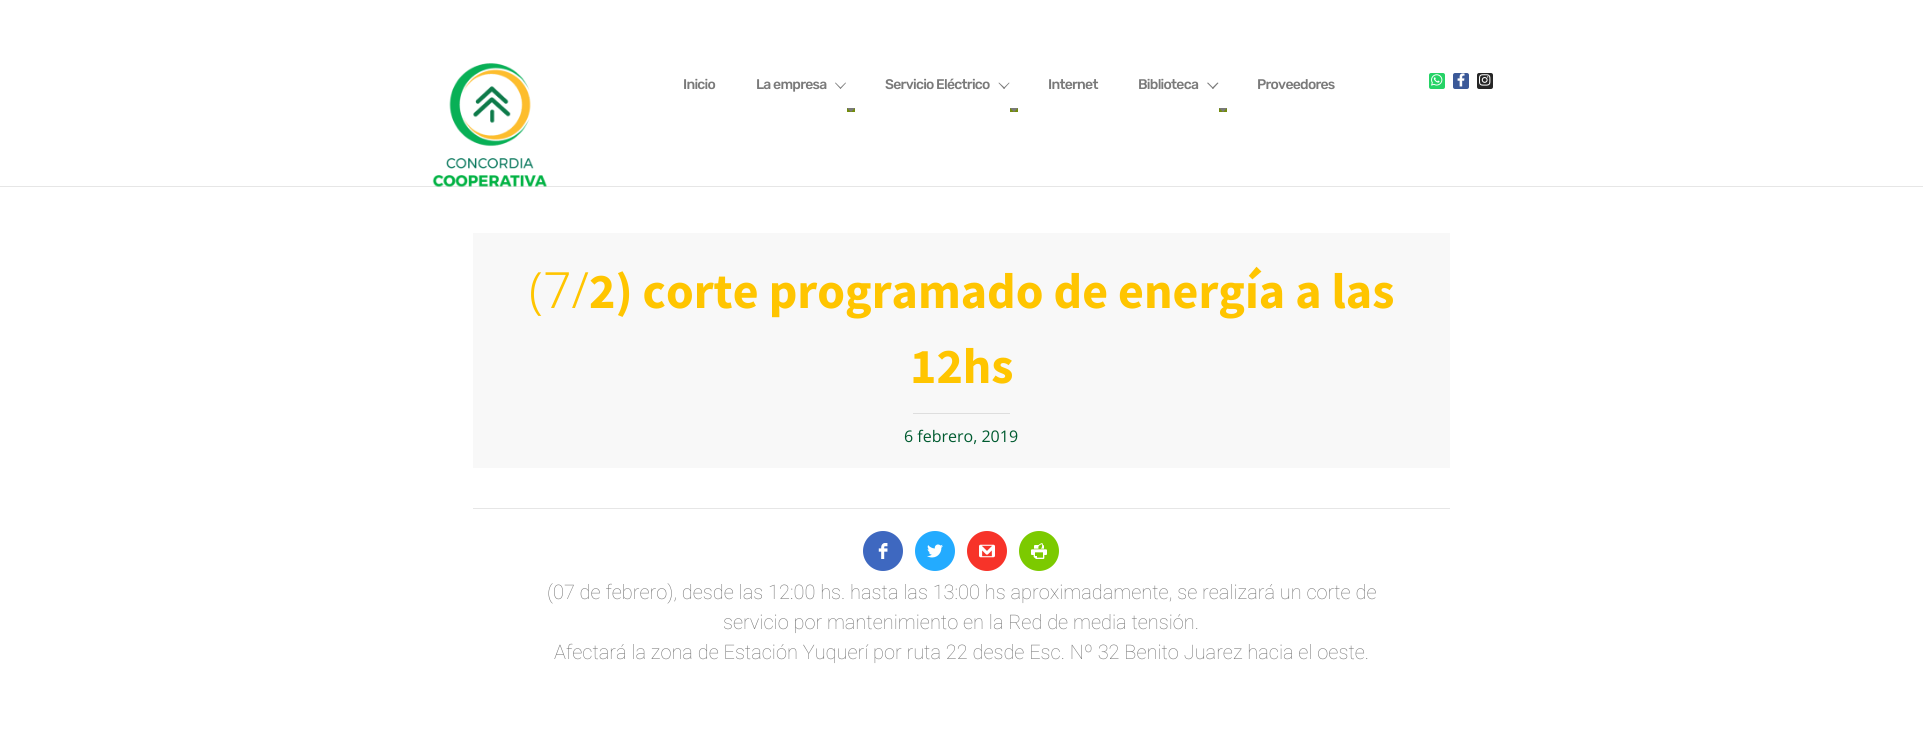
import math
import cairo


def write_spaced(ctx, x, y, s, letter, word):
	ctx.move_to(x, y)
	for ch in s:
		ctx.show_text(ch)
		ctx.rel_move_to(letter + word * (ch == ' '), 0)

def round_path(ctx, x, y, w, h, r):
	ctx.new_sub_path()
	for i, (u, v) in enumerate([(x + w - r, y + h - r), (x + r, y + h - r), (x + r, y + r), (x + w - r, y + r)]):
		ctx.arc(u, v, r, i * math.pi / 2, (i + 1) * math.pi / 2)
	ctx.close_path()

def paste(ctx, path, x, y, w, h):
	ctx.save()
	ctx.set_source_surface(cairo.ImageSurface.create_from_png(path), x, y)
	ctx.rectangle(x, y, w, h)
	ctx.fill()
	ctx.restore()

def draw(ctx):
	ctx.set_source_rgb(1, 1, 1)
	ctx.paint()
	ctx.set_source_rgb(0.902, 0.902, 0.902)
	ctx.rectangle(0, 186, 1923, 1)
	ctx.fill()
	paste(ctx, 'media/1.png', 432, 63, 115, 125)
	ctx.select_font_face('Rubik Medium')
	ctx.set_font_size(14)
	ctx.set_source_rgb(0.478, 0.478, 0.478)
	write_spaced(ctx, 683, 89, 'Inicio', -0.75, 0)
	write_spaced(ctx, 756, 89, 'La empresa', -0.75, 0)
	ctx.new_path()
	ctx.move_to(846, 83)
	ctx.line_to(840.5, 89)
	ctx.line_to(840, 88)
	ctx.line_to(845.5, 82.5)
	ctx.close_path()
	ctx.fill()
	ctx.new_path()
	ctx.move_to(841, 88)
	ctx.line_to(840.5, 89)
	ctx.line_to(835, 83)
	ctx.line_to(835.5, 82.5)
	ctx.close_path()
	ctx.fill()
	ctx.set_source_rgb(0.447, 0.549, 0.047)
	ctx.rectangle(847, 108, 8, 4)
	ctx.fill()
	ctx.set_source_rgb(0.478, 0.478, 0.478)
	ctx.new_path()
	ctx.move_to(847, 108)
	ctx.line_to(855, 108)
	ctx.line_to(851, 112)
	ctx.close_path()
	ctx.fill()
	write_spaced(ctx, 885, 89, 'Servicio Eléctrico', -0.75, 0)
	ctx.new_path()
	ctx.move_to(1009.5, 83)
	ctx.line_to(1004, 89)
	ctx.line_to(1003.5, 88)
	ctx.line_to(1009, 82.5)
	ctx.close_path()
	ctx.fill()
	ctx.new_path()
	ctx.move_to(1005, 88)
	ctx.line_to(1004, 89)
	ctx.line_to(998.5, 83)
	ctx.line_to(999, 82.5)
	ctx.close_path()
	ctx.fill()
	ctx.set_source_rgb(0.447, 0.549, 0.047)
	ctx.rectangle(1010, 108, 8, 4)
	ctx.fill()
	ctx.set_source_rgb(0.478, 0.478, 0.478)
	ctx.new_path()
	ctx.move_to(1010, 108)
	ctx.line_to(1018, 108)
	ctx.line_to(1014, 112)
	ctx.close_path()
	ctx.fill()
	write_spaced(ctx, 1048, 89, 'Internet', -0.75, 0)
	write_spaced(ctx, 1138, 89, 'Biblioteca', -0.75, 0)
	ctx.new_path()
	ctx.move_to(1218.5, 83)
	ctx.line_to(1213, 89)
	ctx.line_to(1212, 88)
	ctx.line_to(1217.5, 82.5)
	ctx.close_path()
	ctx.fill()
	ctx.new_path()
	ctx.move_to(1213.5, 88)
	ctx.line_to(1213, 89)
	ctx.line_to(1207, 83)
	ctx.line_to(1208, 82.5)
	ctx.close_path()
	ctx.fill()
	ctx.set_source_rgb(0.447, 0.549, 0.047)
	ctx.rectangle(1219, 108, 8, 4)
	ctx.fill()
	ctx.set_source_rgb(0.478, 0.478, 0.478)
	ctx.new_path()
	ctx.move_to(1219, 108)
	ctx.line_to(1227, 108)
	ctx.line_to(1223, 112)
	ctx.close_path()
	ctx.fill()
	write_spaced(ctx, 1257, 89, 'Proveedores', -0.75, 0)
	ctx.set_source_rgb(0.145, 0.827, 0.4)
	round_path(ctx, 1429, 73, 16, 16, 2)
	ctx.fill()
	paste(ctx, 'media/2.png', 1431, 74, 12, 12)
	ctx.set_source_rgb(0.231, 0.349, 0.596)
	round_path(ctx, 1453, 73, 16, 16, 2)
	ctx.fill()
	paste(ctx, 'media/3.png', 1457, 73, 8, 14)
	ctx.set_source_rgb(0.149, 0.149, 0.149)
	round_path(ctx, 1477, 73, 16, 16, 2)
	ctx.fill()
	paste(ctx, 'media/4.png', 1479, 74, 12, 12)
	ctx.set_source_rgb(0.969, 0.969, 0.969)
	ctx.rectangle(473, 233, 977, 235)
	ctx.fill()
	ctx.select_font_face('Noto Sans Light')
	ctx.set_font_size(50)
	ctx.set_source_rgb(1, 0.773, 0)
	ctx.move_to(529, 308)
	ctx.show_text('(7/')
	ctx.select_font_face('Source Sans Pro', cairo.FONT_SLANT_NORMAL, cairo.FONT_WEIGHT_BOLD)
	ctx.move_to(589, 308)
	ctx.show_text('2) corte programado de energía a las')
	ctx.move_to(910, 383)
	ctx.show_text('12hs')
	ctx.set_source_rgb(0.871, 0.871, 0.871)
	ctx.rectangle(913, 413, 97, 1)
	ctx.fill()
	ctx.select_font_face('Open Sans')
	ctx.set_font_size(16)
	ctx.set_source_rgb(0, 0.357, 0.188)
	ctx.move_to(904, 442)
	ctx.show_text('6 febrero, 2019')
	ctx.set_source_rgb(0.902, 0.902, 0.902)
	ctx.rectangle(473, 508, 977, 1)
	ctx.fill()
	ctx.set_source_rgb(0.243, 0.408, 0.753)
	ctx.arc(883, 551, 20, 0, 2 * math.pi)
	ctx.fill()
	paste(ctx, 'media/5.png', 878, 543, 10, 16)
	ctx.set_source_rgb(0.137, 0.671, 1)
	ctx.arc(935, 551, 20, 0, 2 * math.pi)
	ctx.fill()
	paste(ctx, 'media/6.png', 927, 544, 16, 14)
	ctx.set_source_rgb(0.965, 0.2, 0.161)
	ctx.arc(987, 551, 20, 0, 2 * math.pi)
	ctx.fill()
	paste(ctx, 'media/7.png', 979, 544, 16, 14)
	ctx.set_source_rgb(0.486, 0.792, 0)
	ctx.arc(1039, 551, 20, 0, 2 * math.pi)
	ctx.fill()
	paste(ctx, 'media/8.png', 1031, 543, 16, 16)
	ctx.select_font_face('Roboto Thin')
	ctx.set_font_size(20)
	ctx.set_source_rgb(0.455, 0.455, 0.455)
	for x, y, s in [
		(547, 599, '(07 de febrero), desde las 12:00 hs. hasta las 13:00 hs aproximadamente, se realizará un corte de'),
		(723, 629, 'servicio por mantenimiento en la Red de media tensión.'),
		(554, 659, 'Afectará la zona de Estación Yuquerí por ruta 22 desde Esc. Nº 32 Benito Juarez hacia el oeste.'),
	]:
		ctx.move_to(x, y)
		ctx.show_text(s)


surface = cairo.ImageSurface(cairo.FORMAT_RGB24, 1923, 755)
ctx = cairo.Context(surface)
options = cairo.FontOptions()
options.set_hint_metrics(cairo.HINT_METRICS_OFF)
options.set_hint_style(cairo.HINT_STYLE_NONE)
ctx.set_font_options(options)
ctx.set_miter_limit(4)
draw(ctx)
surface.write_to_png('image.png')
